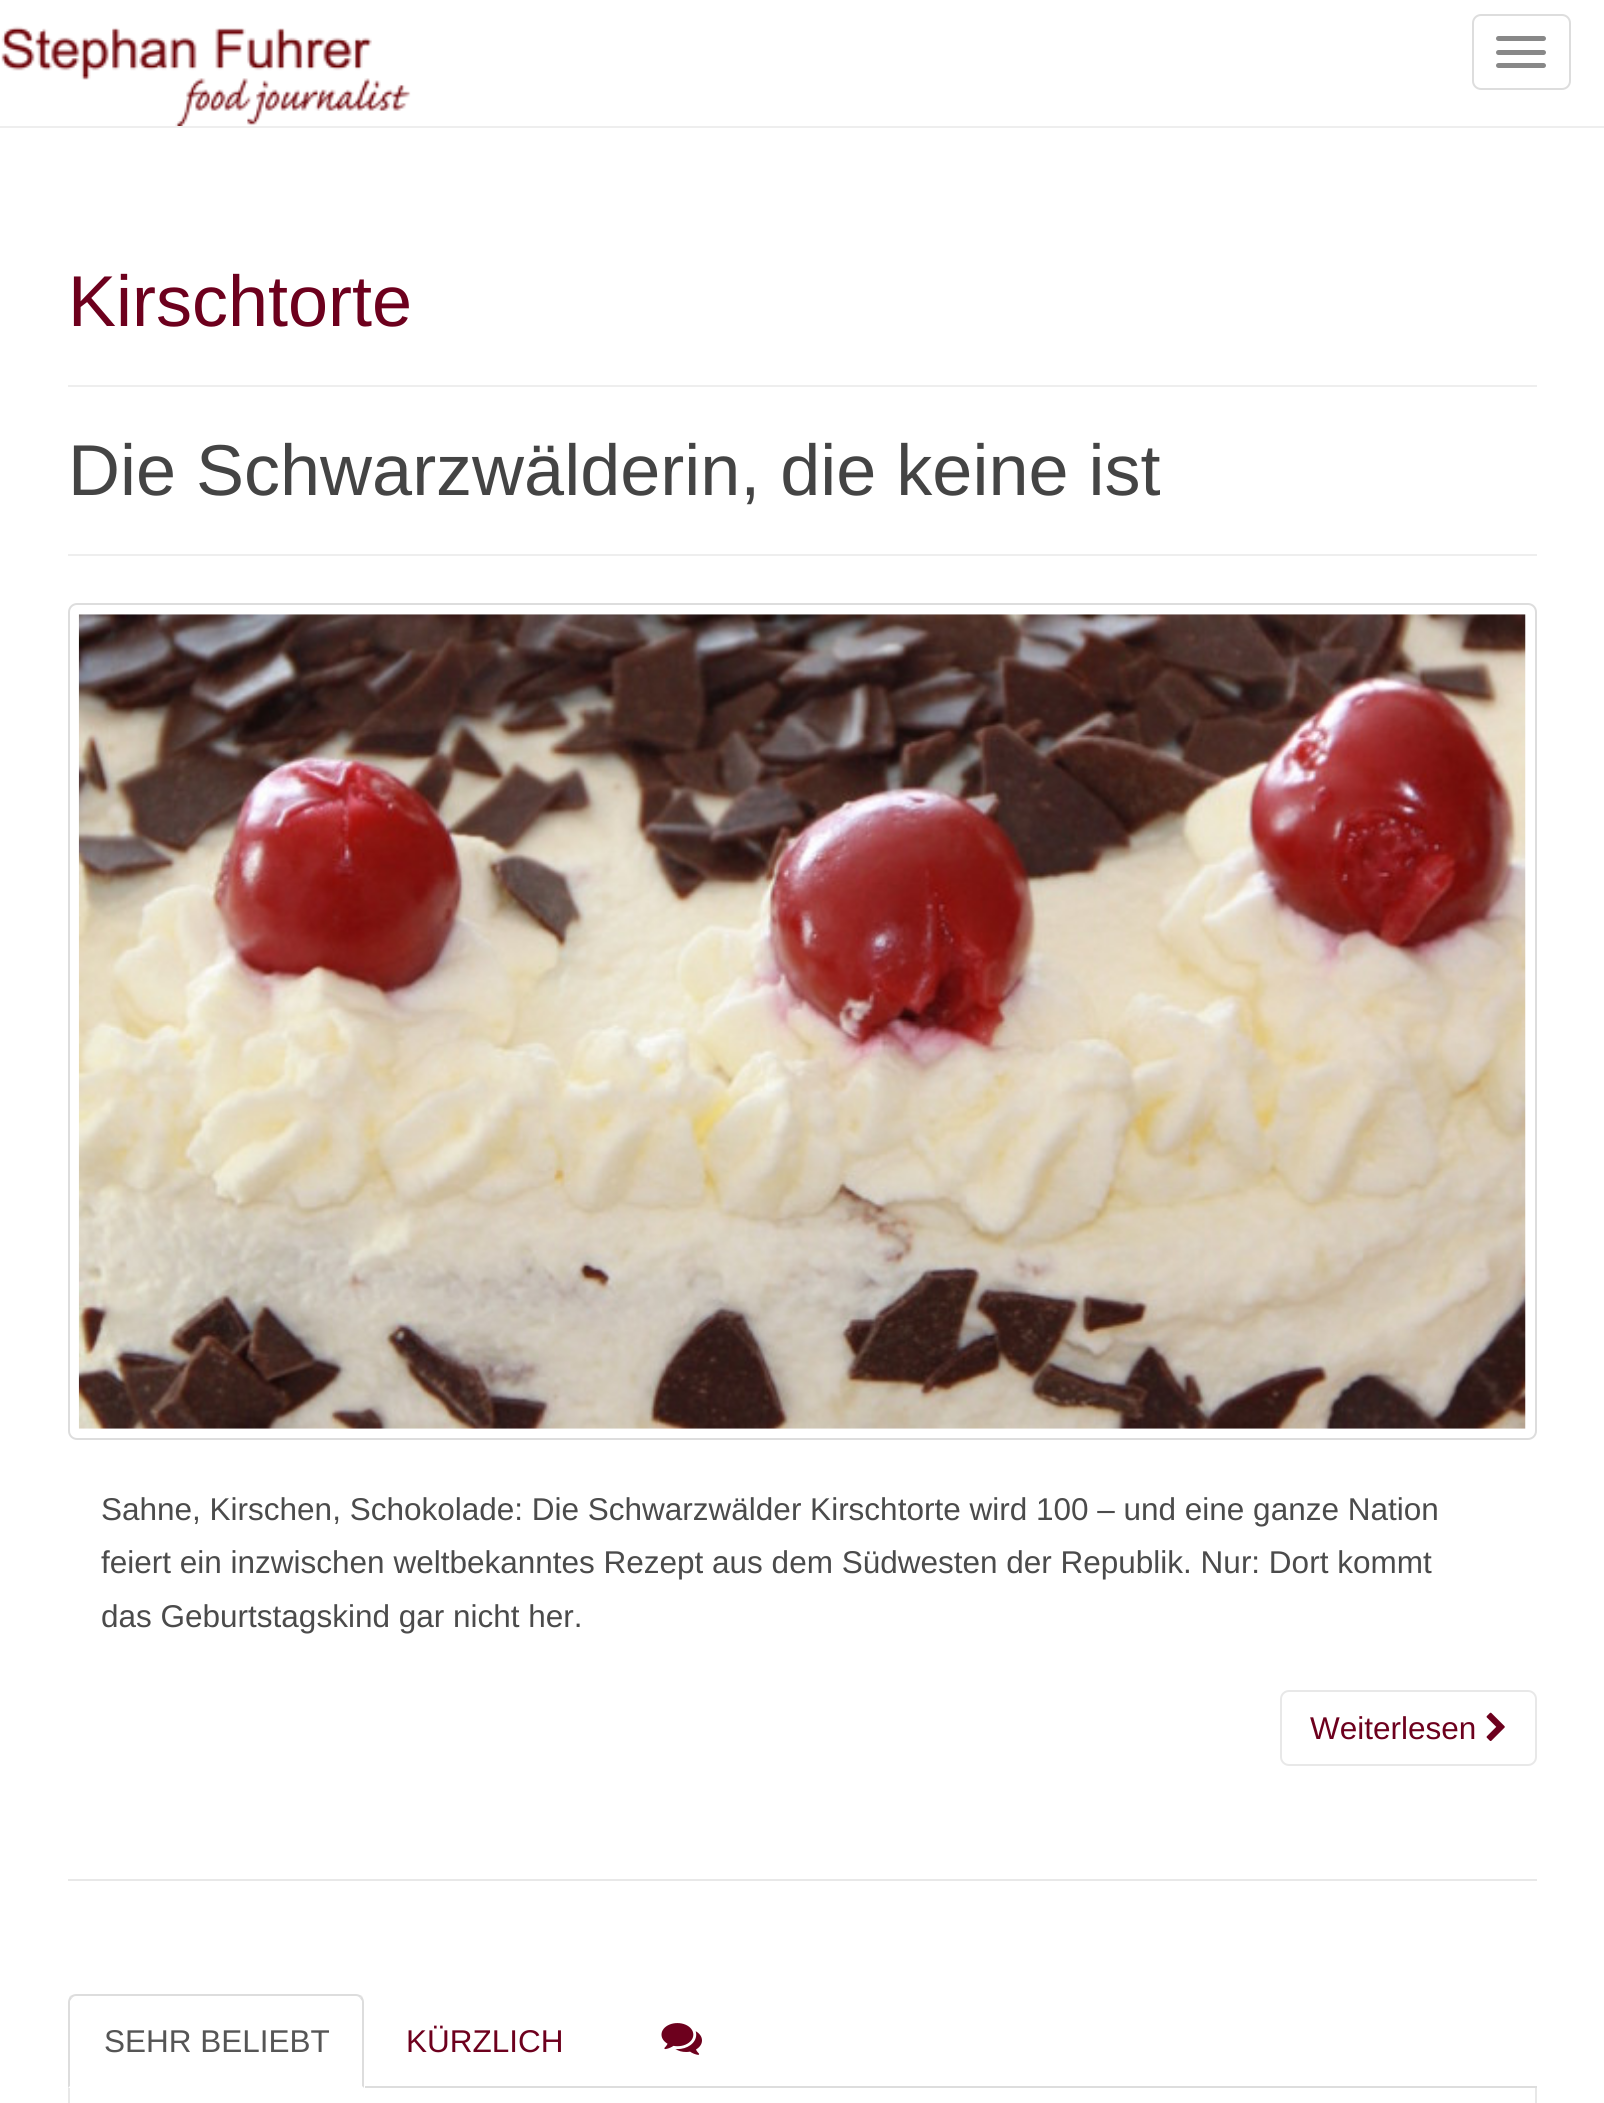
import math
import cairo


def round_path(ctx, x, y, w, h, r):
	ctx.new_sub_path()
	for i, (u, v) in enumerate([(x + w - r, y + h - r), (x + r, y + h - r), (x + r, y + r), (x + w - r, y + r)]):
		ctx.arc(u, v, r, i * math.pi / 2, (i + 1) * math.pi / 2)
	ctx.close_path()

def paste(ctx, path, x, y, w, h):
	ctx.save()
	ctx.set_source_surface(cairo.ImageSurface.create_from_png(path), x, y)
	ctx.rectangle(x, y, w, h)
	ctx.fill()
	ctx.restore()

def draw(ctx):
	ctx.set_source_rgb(1, 1, 1)
	ctx.paint()
	ctx.set_source_rgb(0.933, 0.933, 0.933)
	ctx.rectangle(0, 126, 1604, 2)
	ctx.fill()
	paste(ctx, 'media/1.png', 1, 26, 410, 100)
	round_path(ctx, 1473, 15, 97, 74, 8)
	ctx.set_source_rgb(0.867, 0.867, 0.867)
	ctx.stroke()
	ctx.set_source_rgb(0.533, 0.533, 0.533)
	round_path(ctx, 1496, 36, 50, 5, 2.5)
	ctx.fill()
	round_path(ctx, 1496, 50, 50, 5, 2.5)
	ctx.fill()
	round_path(ctx, 1496, 63, 50, 5, 2.5)
	ctx.fill()
	ctx.set_source_rgb(0.933, 0.933, 0.933)
	ctx.rectangle(68, 385, 1469, 2)
	ctx.fill()
	ctx.select_font_face('Liberation Sans')
	ctx.set_font_size(72)
	ctx.set_source_rgb(0.427, 0, 0.114)
	ctx.move_to(68, 326)
	ctx.show_text('Kirschtorte')
	ctx.set_source_rgb(0.933, 0.933, 0.933)
	ctx.rectangle(68, 554, 1469, 2)
	ctx.fill()
	ctx.set_source_rgb(0.267, 0.267, 0.267)
	ctx.move_to(68, 495)
	ctx.show_text('Die Schwarzwälderin, die keine ist')
	round_path(ctx, 69, 604, 1467, 835, 8)
	ctx.set_source_rgb(0.867, 0.867, 0.867)
	ctx.stroke()
	paste(ctx, 'media/2.png', 78, 614, 1448, 815)
	ctx.set_font_size(31.5)
	ctx.set_source_rgb(0.294, 0.294, 0.294)
	for x, y, s in [
		(101, 1520, 'Sahne, Kirschen, Schokolade: Die Schwarzwälder Kirschtorte wird 100 – und eine ganze Nation'),
		(101, 1573, 'feiert ein inzwischen weltbekanntes Rezept aus dem Südwesten der Republik. Nur: Dort kommt'),
		(101, 1627, 'das Geburtstagskind gar nicht her.'),
	]:
		ctx.move_to(x, y)
		ctx.show_text(s)
	round_path(ctx, 1281, 1691, 255, 74, 8)
	ctx.set_source_rgb(0.91, 0.91, 0.91)
	ctx.stroke()
	ctx.set_source_rgb(0.427, 0, 0.114)
	ctx.move_to(1310, 1739)
	ctx.show_text('Weiterlesen')
	paste(ctx, 'media/3.png', 1486, 1712, 19, 29)
	ctx.set_source_rgb(0.91, 0.91, 0.91)
	ctx.rectangle(68, 1879, 1469, 2)
	ctx.fill()
	ctx.set_source_rgb(0.867, 0.867, 0.867)
	ctx.rectangle(365, 2086, 1172, 2)
	ctx.fill()
	ctx.new_path()
	ctx.move_to(76, 1994)
	ctx.curve_to(74, 1994, 72, 1995, 70, 1996)
	ctx.line_to(72, 1998)
	ctx.curve_to(73, 1997, 74, 1996, 76, 1996)
	ctx.line_to(356, 1996)
	ctx.curve_to(358, 1996, 359, 1997, 360, 1998)
	ctx.line_to(362, 1996)
	ctx.curve_to(360, 1995, 358, 1994, 356, 1994)
	ctx.close_path()
	ctx.fill()
	ctx.new_path()
	ctx.move_to(364, 2088)
	ctx.line_to(364, 2002)
	ctx.curve_to(364, 2000, 363, 1998, 362, 1996)
	ctx.line_to(360, 1998)
	ctx.line_to(362, 2001)
	ctx.line_to(362, 2086)
	ctx.close_path()
	ctx.fill()
	ctx.new_path()
	ctx.move_to(70, 1996)
	ctx.curve_to(69, 1998, 68, 2000, 68, 2002)
	ctx.line_to(68, 2088)
	ctx.line_to(70, 2086)
	ctx.line_to(70, 2001)
	ctx.line_to(72, 1998)
	ctx.close_path()
	ctx.fill()
	ctx.set_source_rgb(0.333, 0.333, 0.333)
	ctx.move_to(104, 2052)
	ctx.show_text('SEHR BELIEBT')
	ctx.set_source_rgb(0.427, 0, 0.114)
	ctx.move_to(406, 2052)
	ctx.show_text('KÜRZLICH')
	paste(ctx, 'media/4.png', 661, 2023, 41, 32)
	ctx.set_source_rgb(0.91, 0.91, 0.91)
	ctx.rectangle(1535, 2088, 2, 15)
	ctx.fill()
	ctx.rectangle(68, 2088, 2, 15)
	ctx.fill()


surface = cairo.ImageSurface(cairo.FORMAT_RGB24, 1604, 2103)
ctx = cairo.Context(surface)
options = cairo.FontOptions()
options.set_hint_metrics(cairo.HINT_METRICS_OFF)
options.set_hint_style(cairo.HINT_STYLE_NONE)
ctx.set_font_options(options)
ctx.set_miter_limit(4)
draw(ctx)
surface.write_to_png('image.png')
